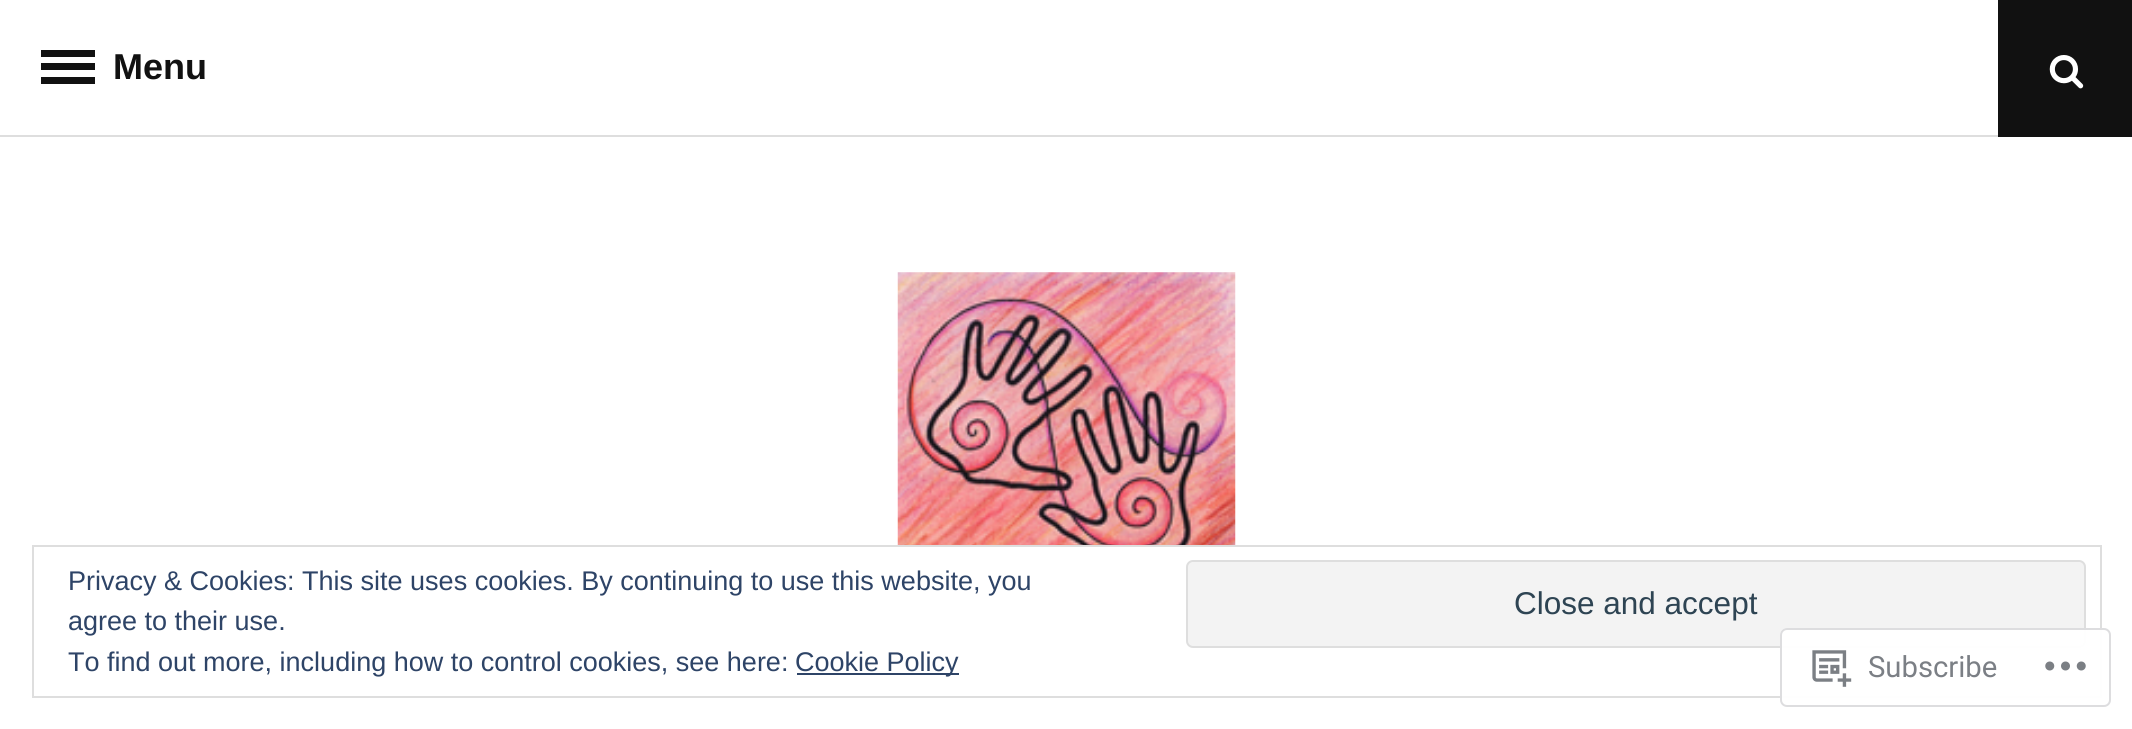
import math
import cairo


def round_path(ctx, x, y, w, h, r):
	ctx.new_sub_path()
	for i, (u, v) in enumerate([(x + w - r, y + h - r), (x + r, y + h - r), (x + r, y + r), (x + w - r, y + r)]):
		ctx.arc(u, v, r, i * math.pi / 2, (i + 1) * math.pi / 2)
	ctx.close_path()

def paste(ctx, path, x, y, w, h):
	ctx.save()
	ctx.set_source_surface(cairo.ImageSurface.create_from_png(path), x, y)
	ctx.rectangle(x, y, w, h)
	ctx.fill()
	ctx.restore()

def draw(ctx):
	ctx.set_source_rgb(1, 1, 1)
	ctx.paint()
	ctx.set_source_rgb(0.871, 0.871, 0.871)
	ctx.rectangle(0, 135, 1998, 2)
	ctx.fill()
	ctx.set_source_rgb(0.067, 0.067, 0.067)
	ctx.rectangle(41, 50, 54, 7)
	ctx.rectangle(41, 63, 54, 7)
	ctx.rectangle(41, 77, 54, 7)
	ctx.fill()
	ctx.select_font_face('Arimo', cairo.FONT_SLANT_NORMAL, cairo.FONT_WEIGHT_BOLD)
	ctx.set_font_size(36)
	ctx.move_to(113, 79)
	ctx.show_text('Menu')
	ctx.rectangle(1998, 0, 134, 137)
	ctx.fill()
	paste(ctx, 'media/1.png', 2049, 55, 35, 34)
	paste(ctx, 'media/2.png', 897, 272, 339, 273)
	ctx.rectangle(33, 546, 2068, 151)
	ctx.set_source_rgb(0.871, 0.871, 0.871)
	ctx.stroke()
	ctx.select_font_face('Arimo')
	ctx.set_font_size(27)
	ctx.set_source_rgb(0.18, 0.267, 0.404)
	ctx.move_to(68, 590)
	ctx.show_text('Privacy & Cookies: This site uses cookies. By continuing to use this website, you')
	ctx.move_to(68, 630)
	ctx.show_text('agree to their use.')
	ctx.set_source_rgb(0.953, 0.953, 0.953)
	round_path(ctx, 1187, 561, 898, 86, 6)
	ctx.fill_preserve()
	ctx.set_source_rgb(0.871, 0.871, 0.871)
	ctx.stroke()
	ctx.set_font_size(31.5)
	ctx.set_source_rgb(0.18, 0.267, 0.325)
	ctx.move_to(1514, 614)
	ctx.show_text('Close and accept')
	ctx.set_font_size(27)
	ctx.set_source_rgb(0.18, 0.267, 0.404)
	ctx.move_to(68, 671)
	ctx.show_text('To find out more, including how to control cookies, see here:')
	ctx.rectangle(797, 673, 162, 2)
	ctx.fill()
	ctx.move_to(795, 671)
	ctx.show_text('Cookie Policy')
	ctx.set_source_rgba(1, 1, 1, 0.98)
	round_path(ctx, 1780, 628, 331, 79, 7)
	ctx.fill()
	round_path(ctx, 1781, 629, 329, 77, 6)
	ctx.set_source_rgba(0.863, 0.863, 0.871, 0.98)
	ctx.stroke()
	paste(ctx, 'media/3.png', 1812, 650, 40, 37)
	ctx.select_font_face('Roboto')
	ctx.set_font_size(29.25)
	ctx.set_source_rgb(0.482, 0.498, 0.522)
	ctx.move_to(1868, 677)
	ctx.show_text('Subscribe')
	paste(ctx, 'media/4.png', 2045, 661, 41, 10)


surface = cairo.ImageSurface(cairo.FORMAT_RGB24, 2132, 729)
ctx = cairo.Context(surface)
options = cairo.FontOptions()
options.set_hint_metrics(cairo.HINT_METRICS_OFF)
options.set_hint_style(cairo.HINT_STYLE_NONE)
ctx.set_font_options(options)
ctx.set_miter_limit(4)
draw(ctx)
surface.write_to_png('image.png')
